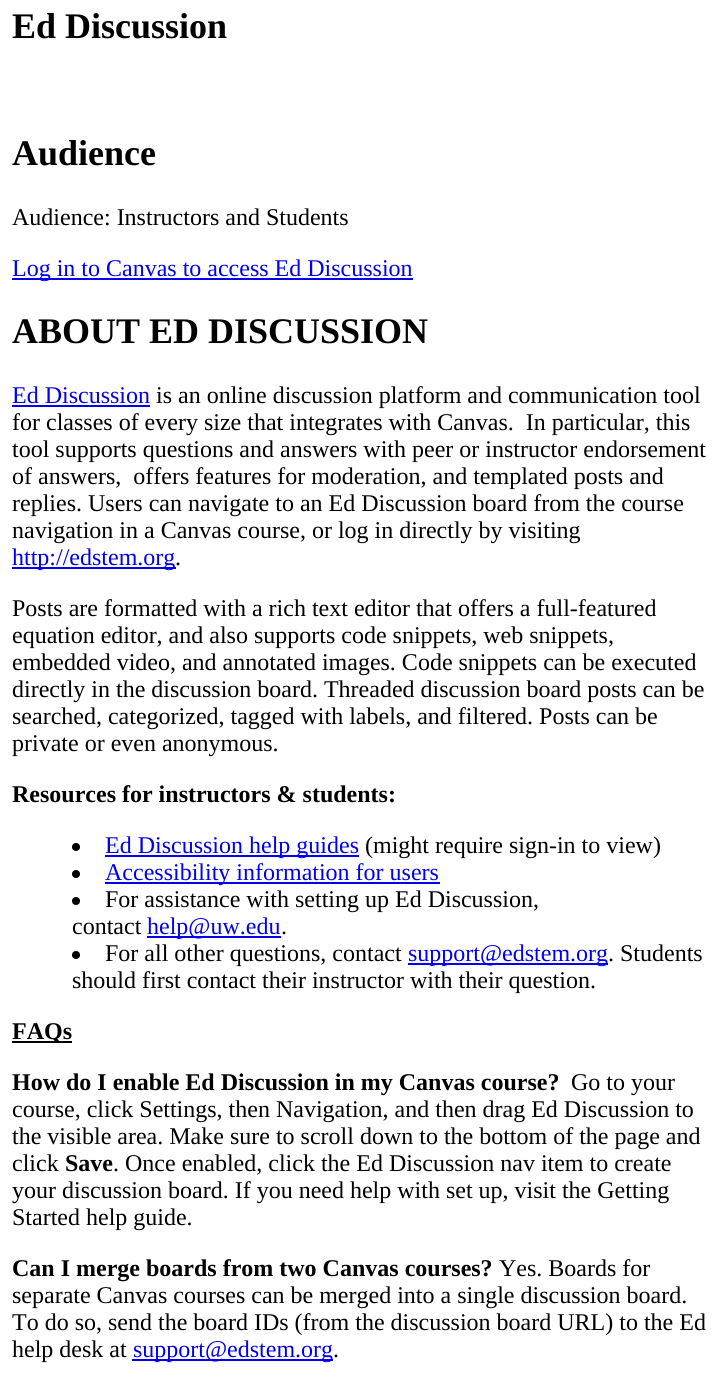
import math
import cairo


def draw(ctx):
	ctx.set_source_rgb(1, 1, 1)
	ctx.paint()
	ctx.select_font_face('Liberation Serif', cairo.FONT_SLANT_NORMAL, cairo.FONT_WEIGHT_BOLD)
	ctx.set_font_size(36)
	ctx.set_source_rgb(0, 0, 0)
	ctx.move_to(12, 38)
	ctx.show_text('Ed Discussion')
	ctx.move_to(12, 165)
	ctx.show_text('Audience')
	ctx.select_font_face('Liberation Serif')
	ctx.set_font_size(24)
	ctx.move_to(12, 225)
	ctx.show_text('Audience: Instructors and Students')
	ctx.set_source_rgb(0, 0, 0.933)
	ctx.rectangle(12, 278, 401, 2)
	ctx.fill()
	ctx.move_to(12, 276)
	ctx.show_text('Log in to Canvas to access Ed Discussion')
	ctx.select_font_face('Liberation Serif', cairo.FONT_SLANT_NORMAL, cairo.FONT_WEIGHT_BOLD)
	ctx.set_font_size(36)
	ctx.set_source_rgb(0, 0, 0)
	ctx.move_to(12, 343)
	ctx.show_text('ABOUT ED DISCUSSION')
	ctx.select_font_face('Liberation Serif')
	ctx.set_font_size(24)
	ctx.set_source_rgb(0, 0, 0.933)
	ctx.move_to(12, 403)
	ctx.show_text('Ed Discussion')
	ctx.rectangle(12, 405, 138, 2)
	ctx.fill()
	ctx.set_source_rgb(0, 0, 0)
	for x, y, s in [
		(156, 403, 'is an online discussion platform and communication tool'),
		(12, 430, 'for classes of every size that integrates with Canvas.  In particular, this'),
		(12, 457, 'tool supports questions and answers with peer or instructor endorsement'),
		(12, 484, 'of answers,  offers features for moderation, and templated posts and'),
		(12, 511, 'replies. Users can navigate to an Ed Discussion board from the course'),
		(12, 538, 'navigation in a Canvas course, or log in directly by visiting'),
	]:
		ctx.move_to(x, y)
		ctx.show_text(s)
	ctx.set_source_rgb(0, 0, 0.933)
	ctx.rectangle(12, 567, 164, 2)
	ctx.fill()
	ctx.move_to(12, 565)
	ctx.show_text('http://edstem.org')
	ctx.set_source_rgb(0, 0, 0)
	for x, y, s in [
		(175, 565, '.'),
		(12, 616, 'Posts are formatted with a rich text editor that offers a full-featured'),
		(12, 643, 'equation editor, and also supports code snippets, web snippets,'),
		(12, 670, 'embedded video, and annotated images. Code snippets can be executed'),
		(12, 697, 'directly in the discussion board. Threaded discussion board posts can be'),
		(12, 724, 'searched, categorized, tagged with labels, and filtered. Posts can be'),
		(12, 751, 'private or even anonymous.'),
	]:
		ctx.move_to(x, y)
		ctx.show_text(s)
	ctx.select_font_face('Liberation Serif', cairo.FONT_SLANT_NORMAL, cairo.FONT_WEIGHT_BOLD)
	ctx.move_to(12, 802)
	ctx.show_text('Resources for instructors & students:')
	ctx.new_path()
	ctx.arc(76, 847, 4, 0, 2 * math.pi)
	ctx.fill()
	ctx.set_source_rgb(0, 0, 0.933)
	ctx.rectangle(105, 855, 254, 2)
	ctx.fill()
	ctx.select_font_face('Liberation Serif')
	ctx.move_to(105, 853)
	ctx.show_text('Ed Discussion help guides')
	ctx.set_source_rgb(0, 0, 0)
	ctx.move_to(365, 853)
	ctx.show_text('(might require sign-in to view)')
	ctx.new_path()
	ctx.arc(76, 874, 4, 0, 2 * math.pi)
	ctx.fill()
	ctx.set_source_rgb(0, 0, 0.933)
	ctx.rectangle(105, 882, 335, 2)
	ctx.fill()
	ctx.move_to(105, 880)
	ctx.show_text('Accessibility information for users')
	ctx.set_source_rgb(0, 0, 0)
	ctx.new_path()
	ctx.arc(76, 901, 4, 0, 2 * math.pi)
	ctx.fill()
	ctx.move_to(105, 907)
	ctx.show_text('For assistance with setting up Ed Discussion,')
	ctx.move_to(72, 934)
	ctx.show_text('contact')
	ctx.set_source_rgb(0, 0, 0.933)
	ctx.rectangle(147, 936, 134, 2)
	ctx.fill()
	ctx.move_to(147, 934)
	ctx.show_text('help@uw.edu')
	ctx.set_source_rgb(0, 0, 0)
	ctx.move_to(281, 934)
	ctx.show_text('.')
	ctx.new_path()
	ctx.arc(76, 955, 4, 0, 2 * math.pi)
	ctx.fill()
	ctx.move_to(105, 961)
	ctx.show_text('For all other questions, contact')
	ctx.set_source_rgb(0, 0, 0.933)
	ctx.rectangle(408, 963, 200, 2)
	ctx.fill()
	ctx.move_to(408, 961)
	ctx.show_text('support@edstem.org')
	ctx.set_source_rgb(0, 0, 0)
	ctx.move_to(608, 961)
	ctx.show_text('. Students')
	ctx.move_to(72, 988)
	ctx.show_text('should first contact their instructor with their question.')
	ctx.rectangle(12, 1041, 60, 2)
	ctx.fill()
	ctx.select_font_face('Liberation Serif', cairo.FONT_SLANT_NORMAL, cairo.FONT_WEIGHT_BOLD)
	ctx.move_to(12, 1039)
	ctx.show_text('FAQs')
	ctx.move_to(12, 1090)
	ctx.show_text('How do I enable Ed Discussion in my Canvas course?')
	ctx.select_font_face('Liberation Serif')
	for x, y, s in [
		(571, 1090, 'Go to your'),
		(12, 1117, 'course, click Settings, then Navigation, and then drag Ed Discussion to'),
		(12, 1144, 'the visible area. Make sure to scroll down to the bottom of the page and'),
		(12, 1171, 'click'),
	]:
		ctx.move_to(x, y)
		ctx.show_text(s)
	ctx.select_font_face('Liberation Serif', cairo.FONT_SLANT_NORMAL, cairo.FONT_WEIGHT_BOLD)
	ctx.move_to(65, 1171)
	ctx.show_text('Save')
	ctx.select_font_face('Liberation Serif')
	for x, y, s in [
		(113, 1171, '. Once enabled, click the Ed Discussion nav item to create'),
		(12, 1198, 'your discussion board. If you need help with set up, visit the Getting'),
		(12, 1225, 'Started help guide.'),
	]:
		ctx.move_to(x, y)
		ctx.show_text(s)
	ctx.select_font_face('Liberation Serif', cairo.FONT_SLANT_NORMAL, cairo.FONT_WEIGHT_BOLD)
	ctx.move_to(12, 1276)
	ctx.show_text('Can I merge boards from two Canvas courses?')
	ctx.select_font_face('Liberation Serif')
	for x, y, s in [
		(499, 1276, 'Yes. Boards for'),
		(12, 1303, 'separate Canvas courses can be merged into a single discussion board.'),
		(12, 1330, 'To do so, send the board IDs (from the discussion board URL) to the Ed'),
		(12, 1357, 'help desk at'),
	]:
		ctx.move_to(x, y)
		ctx.show_text(s)
	ctx.set_source_rgb(0, 0, 0.933)
	ctx.rectangle(132, 1359, 201, 2)
	ctx.fill()
	ctx.move_to(133, 1357)
	ctx.show_text('support@edstem.org')
	ctx.set_source_rgb(0, 0, 0)
	ctx.move_to(333, 1357)
	ctx.show_text('.')


surface = cairo.ImageSurface(cairo.FORMAT_RGB24, 725, 1397)
ctx = cairo.Context(surface)
options = cairo.FontOptions()
options.set_hint_metrics(cairo.HINT_METRICS_OFF)
options.set_hint_style(cairo.HINT_STYLE_NONE)
ctx.set_font_options(options)
ctx.set_miter_limit(4)
draw(ctx)
surface.write_to_png('image.png')
